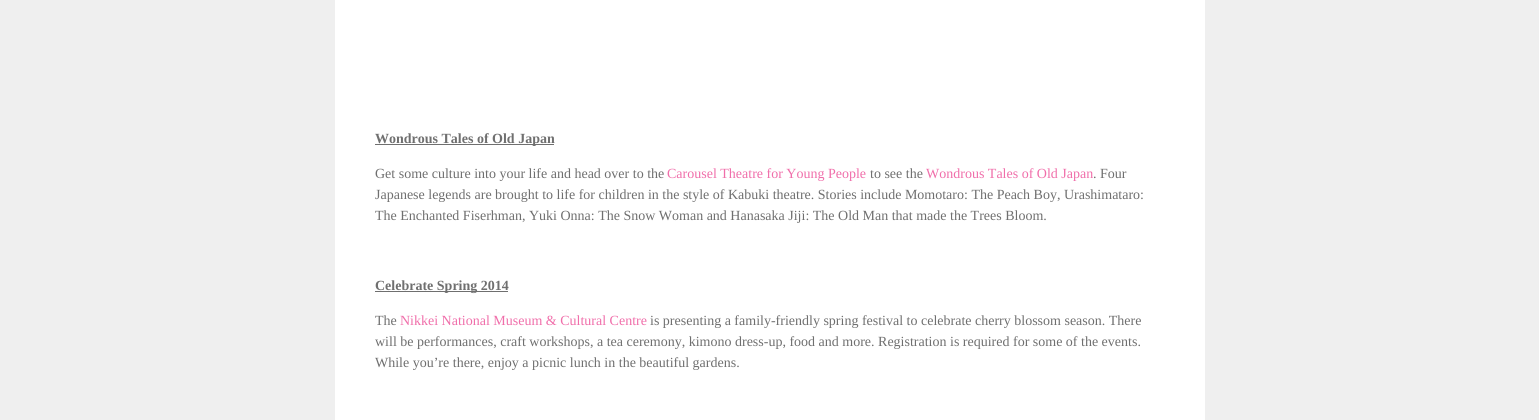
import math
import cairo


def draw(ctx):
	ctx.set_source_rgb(0.937, 0.937, 0.937)
	ctx.paint()
	ctx.set_source_rgb(1, 1, 1)
	ctx.rectangle(335, 0, 870, 420)
	ctx.fill()
	ctx.set_source_rgb(0.435, 0.435, 0.435)
	ctx.rectangle(375, 144, 179, 1)
	ctx.fill()
	ctx.select_font_face('Liberation Serif', cairo.FONT_SLANT_NORMAL, cairo.FONT_WEIGHT_BOLD)
	ctx.set_font_size(14)
	ctx.move_to(375, 143)
	ctx.show_text('Wondrous Tales of Old Japan')
	ctx.select_font_face('Liberation Serif')
	ctx.move_to(375, 178)
	ctx.show_text('Get some culture into your life and head over to the')
	ctx.set_source_rgb(0.941, 0.431, 0.667)
	ctx.move_to(667, 178)
	ctx.show_text('Carousel Theatre for Young People')
	ctx.set_source_rgb(0.435, 0.435, 0.435)
	ctx.move_to(870, 178)
	ctx.show_text('to see the')
	ctx.set_source_rgb(0.941, 0.431, 0.667)
	ctx.move_to(926, 178)
	ctx.show_text('Wondrous Tales of Old Japan')
	ctx.set_source_rgb(0.435, 0.435, 0.435)
	for x, y, s in [
		(1093, 178, '. Four'),
		(375, 199, 'Japanese legends are brought to life for children in the style of Kabuki theatre. Stories include Momotaro: The Peach Boy, Urashimataro:'),
		(375, 220, 'The Enchanted Fiserhman, Yuki Onna: The Snow Woman and Hanasaka Jiji: The Old Man that made the Trees Bloom.'),
	]:
		ctx.move_to(x, y)
		ctx.show_text(s)
	ctx.rectangle(375, 291, 133, 1)
	ctx.fill()
	ctx.select_font_face('Liberation Serif', cairo.FONT_SLANT_NORMAL, cairo.FONT_WEIGHT_BOLD)
	ctx.move_to(375, 290)
	ctx.show_text('Celebrate Spring 2014')
	ctx.select_font_face('Liberation Serif')
	ctx.move_to(375, 325)
	ctx.show_text('The')
	ctx.set_source_rgb(0.941, 0.431, 0.667)
	ctx.move_to(400, 325)
	ctx.show_text('Nikkei National Museum & Cultural Centre')
	ctx.set_source_rgb(0.435, 0.435, 0.435)
	for x, y, s in [
		(650, 325, 'is presenting a family-friendly spring festival to celebrate cherry blossom season. There'),
		(375, 346, 'will be performances, craft workshops, a tea ceremony, kimono dress-up, food and more. Registration is required for some of the events.'),
		(375, 367, 'While you’re there, enjoy a picnic lunch in the beautiful gardens.'),
	]:
		ctx.move_to(x, y)
		ctx.show_text(s)


surface = cairo.ImageSurface(cairo.FORMAT_RGB24, 1539, 420)
ctx = cairo.Context(surface)
options = cairo.FontOptions()
options.set_hint_metrics(cairo.HINT_METRICS_OFF)
options.set_hint_style(cairo.HINT_STYLE_NONE)
ctx.set_font_options(options)
ctx.set_miter_limit(4)
draw(ctx)
surface.write_to_png('image.png')
